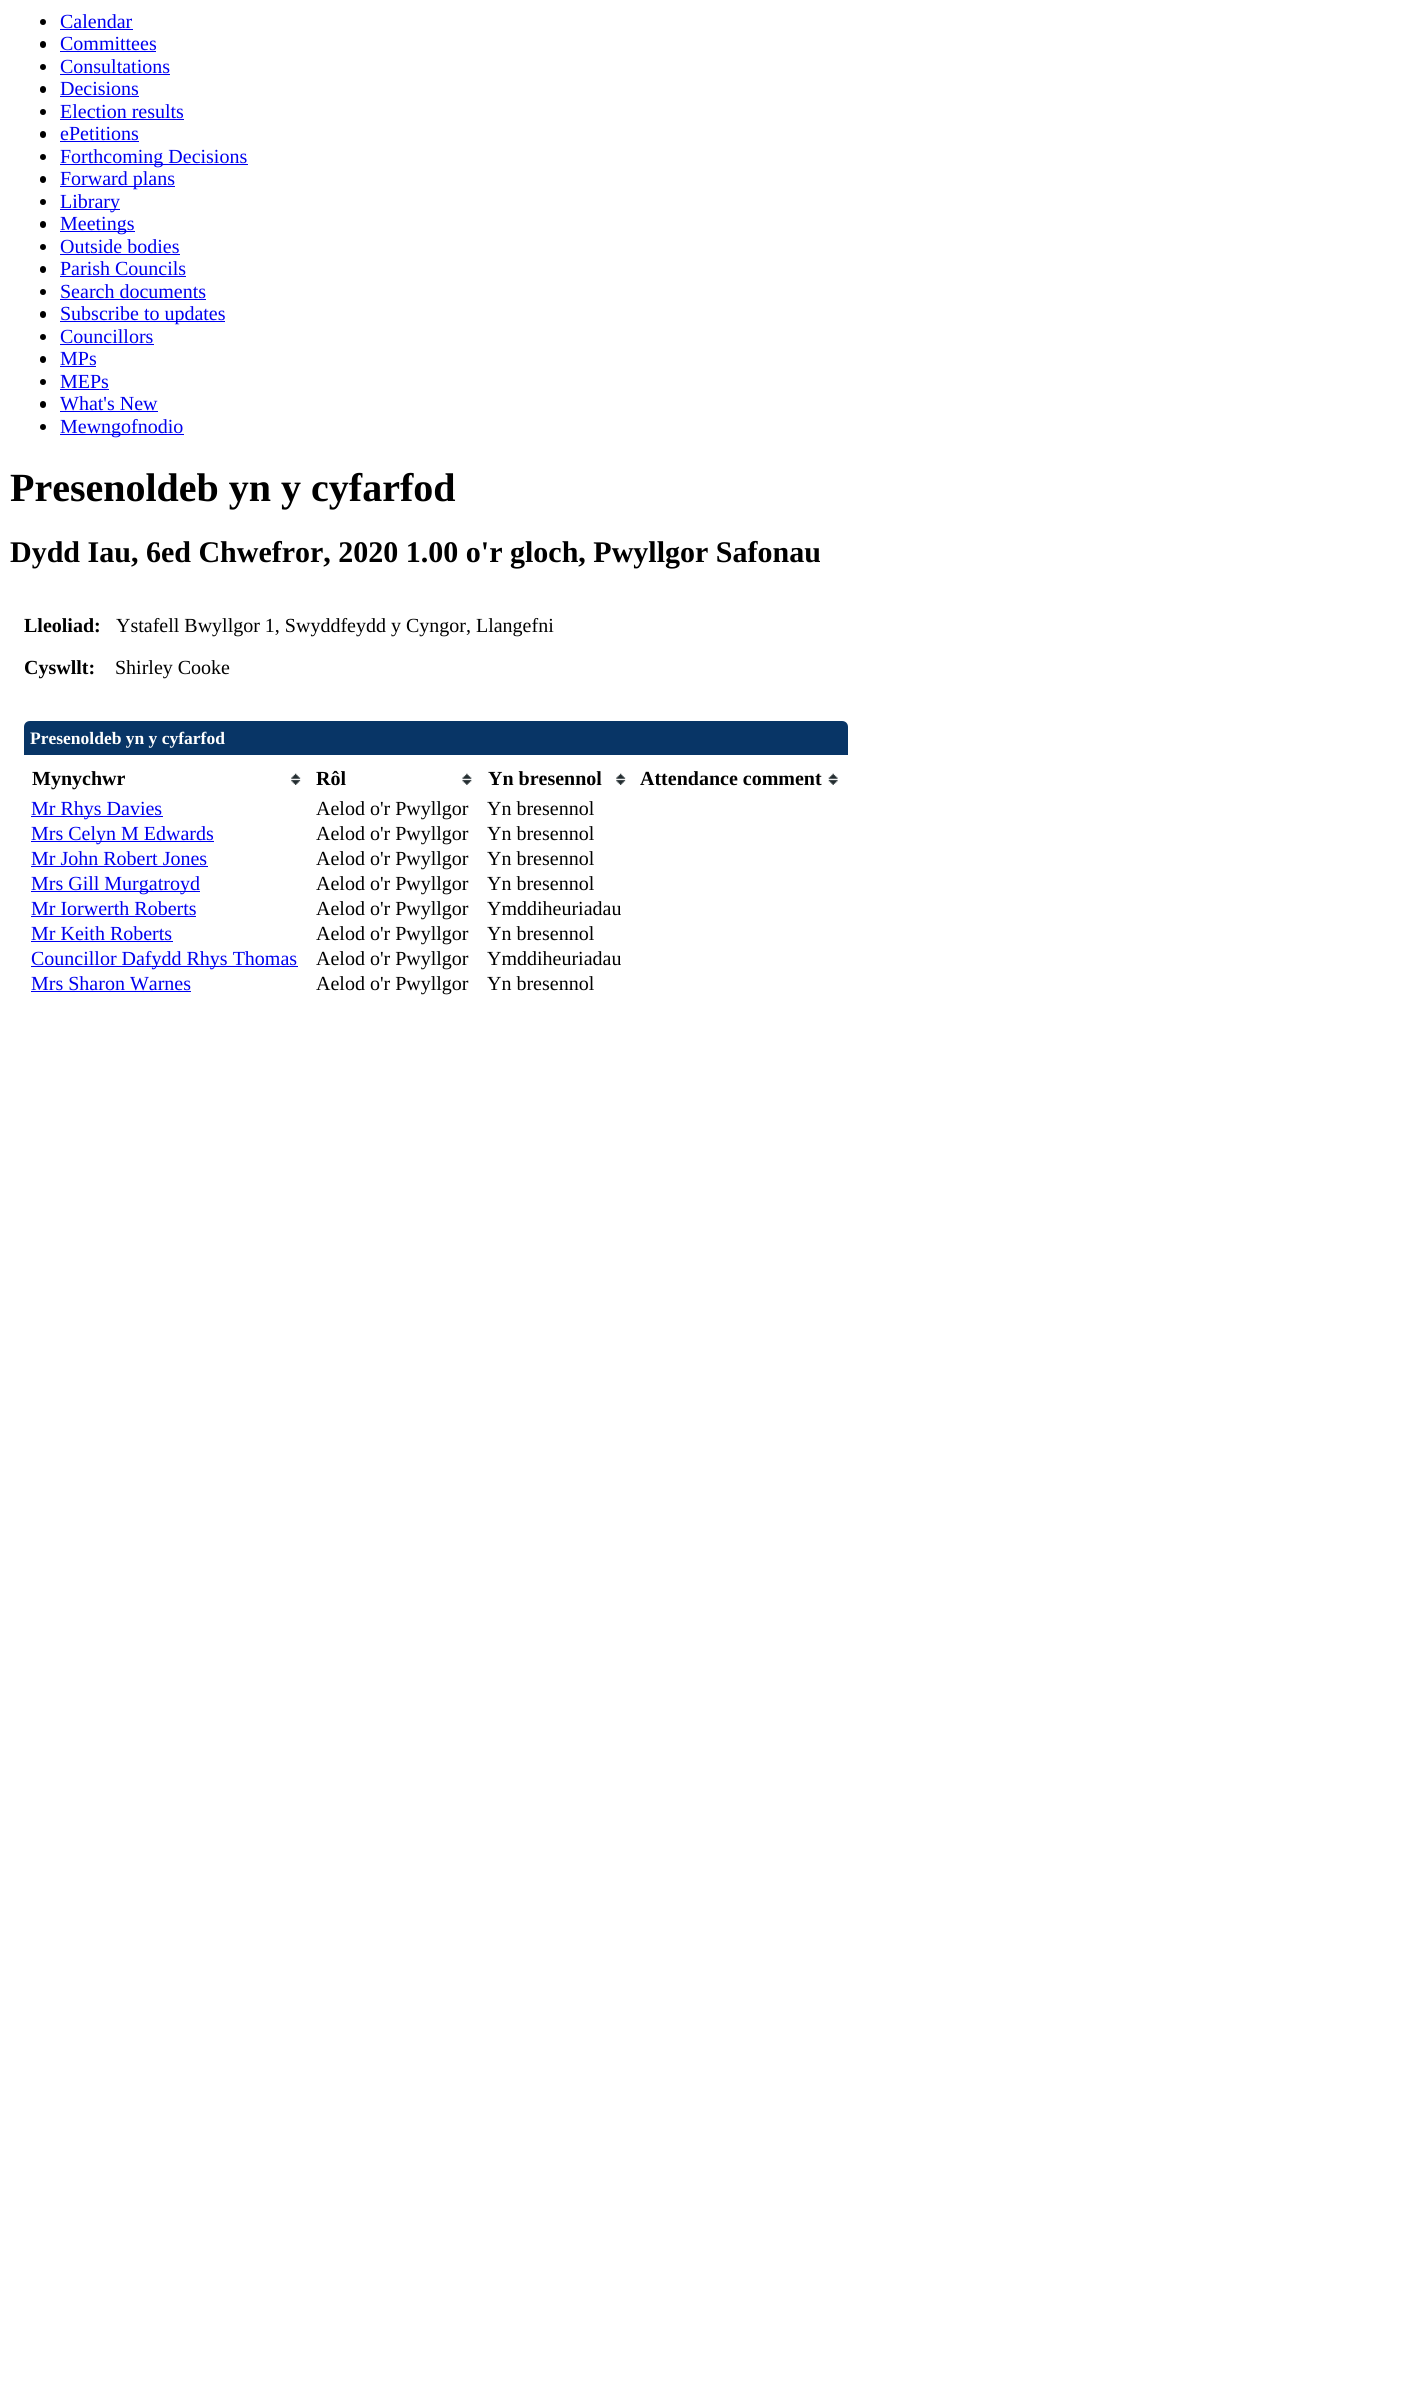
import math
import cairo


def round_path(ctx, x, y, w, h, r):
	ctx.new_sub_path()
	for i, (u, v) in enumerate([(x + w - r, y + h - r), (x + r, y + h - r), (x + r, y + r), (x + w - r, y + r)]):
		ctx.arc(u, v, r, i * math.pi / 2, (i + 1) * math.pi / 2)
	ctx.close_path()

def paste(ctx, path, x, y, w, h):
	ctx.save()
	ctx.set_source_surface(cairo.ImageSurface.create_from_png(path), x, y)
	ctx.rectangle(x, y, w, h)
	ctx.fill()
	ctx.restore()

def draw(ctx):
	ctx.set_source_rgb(1, 1, 1)
	ctx.paint()
	ctx.set_source_rgb(0, 0, 0)
	ctx.arc(43, 22, 3, 0, 2 * math.pi)
	ctx.fill()
	ctx.select_font_face('Liberation Serif')
	ctx.set_font_size(20)
	ctx.set_source_rgb(0, 0, 0.933)
	ctx.move_to(60, 28)
	ctx.show_text('Calendar')
	ctx.rectangle(60, 29, 73, 1)
	ctx.fill()
	ctx.set_source_rgb(0, 0, 0)
	round_path(ctx, 40, 41, 6, 7, 3)
	ctx.fill()
	ctx.set_source_rgb(0, 0, 0.933)
	ctx.move_to(60, 50)
	ctx.show_text('Committees')
	ctx.rectangle(60, 51, 96, 1)
	ctx.fill()
	ctx.set_source_rgb(0, 0, 0)
	ctx.arc(43, 67, 3, 0, 2 * math.pi)
	ctx.fill()
	ctx.set_source_rgb(0, 0, 0.933)
	ctx.move_to(60, 73)
	ctx.show_text('Consultations')
	ctx.rectangle(60, 74, 110, 1)
	ctx.fill()
	ctx.set_source_rgb(0, 0, 0)
	round_path(ctx, 40, 86, 6, 7, 3)
	ctx.fill()
	ctx.set_source_rgb(0, 0, 0.933)
	ctx.move_to(60, 95)
	ctx.show_text('Decisions')
	ctx.rectangle(60, 96, 79, 1)
	ctx.fill()
	ctx.set_source_rgb(0, 0, 0)
	ctx.arc(43, 112, 3, 0, 2 * math.pi)
	ctx.fill()
	ctx.set_source_rgb(0, 0, 0.933)
	ctx.move_to(60, 118)
	ctx.show_text('Election results')
	ctx.rectangle(60, 119, 124, 1)
	ctx.fill()
	ctx.set_source_rgb(0, 0, 0)
	round_path(ctx, 40, 131, 6, 7, 3)
	ctx.fill()
	ctx.set_source_rgb(0, 0, 0.933)
	ctx.move_to(60, 140)
	ctx.show_text('ePetitions')
	ctx.rectangle(60, 141, 79, 1)
	ctx.fill()
	ctx.set_source_rgb(0, 0, 0)
	ctx.arc(43, 157, 3, 0, 2 * math.pi)
	ctx.fill()
	ctx.set_source_rgb(0, 0, 0.933)
	ctx.rectangle(60, 164, 188, 1)
	ctx.fill()
	ctx.move_to(60, 163)
	ctx.show_text('Forthcoming Decisions')
	ctx.set_source_rgb(0, 0, 0)
	round_path(ctx, 40, 176, 6, 7, 3)
	ctx.fill()
	ctx.set_source_rgb(0, 0, 0.933)
	ctx.rectangle(60, 186, 115, 1)
	ctx.fill()
	ctx.move_to(60, 185)
	ctx.show_text('Forward plans')
	ctx.set_source_rgb(0, 0, 0)
	ctx.new_path()
	ctx.arc(43, 202, 3, 0, 2 * math.pi)
	ctx.fill()
	ctx.set_source_rgb(0, 0, 0.933)
	ctx.rectangle(60, 209, 60, 1)
	ctx.fill()
	ctx.move_to(60, 208)
	ctx.show_text('Library')
	ctx.set_source_rgb(0, 0, 0)
	round_path(ctx, 40, 221, 6, 7, 3)
	ctx.fill()
	ctx.set_source_rgb(0, 0, 0.933)
	ctx.rectangle(60, 231, 75, 1)
	ctx.fill()
	ctx.move_to(60, 230)
	ctx.show_text('Meetings')
	ctx.set_source_rgb(0, 0, 0)
	ctx.new_path()
	ctx.arc(43, 247, 3, 0, 2 * math.pi)
	ctx.fill()
	ctx.set_source_rgb(0, 0, 0.933)
	ctx.move_to(60, 253)
	ctx.show_text('Outside bodies')
	ctx.rectangle(60, 254, 120, 1)
	ctx.fill()
	ctx.set_source_rgb(0, 0, 0)
	round_path(ctx, 40, 266, 6, 7, 3)
	ctx.fill()
	ctx.set_source_rgb(0, 0, 0.933)
	ctx.move_to(60, 275)
	ctx.show_text('Parish Councils')
	ctx.rectangle(60, 276, 126, 1)
	ctx.fill()
	ctx.set_source_rgb(0, 0, 0)
	ctx.arc(43, 292, 3, 0, 2 * math.pi)
	ctx.fill()
	ctx.set_source_rgb(0, 0, 0.933)
	ctx.move_to(60, 298)
	ctx.show_text('Search documents')
	ctx.rectangle(60, 299, 146, 1)
	ctx.fill()
	ctx.set_source_rgb(0, 0, 0)
	round_path(ctx, 40, 311, 6, 7, 3)
	ctx.fill()
	ctx.set_source_rgb(0, 0, 0.933)
	ctx.rectangle(60, 321, 165, 1)
	ctx.fill()
	ctx.move_to(60, 320)
	ctx.show_text('Subscribe to updates')
	ctx.set_source_rgb(0, 0, 0)
	ctx.new_path()
	ctx.arc(43, 337, 3, 0, 2 * math.pi)
	ctx.fill()
	ctx.set_source_rgb(0, 0, 0.933)
	ctx.move_to(60, 343)
	ctx.show_text('Councillors')
	ctx.rectangle(60, 344, 94, 1)
	ctx.fill()
	ctx.set_source_rgb(0, 0, 0)
	round_path(ctx, 40, 356, 6, 7, 3)
	ctx.fill()
	ctx.set_source_rgb(0, 0, 0.933)
	ctx.move_to(60, 365)
	ctx.show_text('MPs')
	ctx.rectangle(60, 366, 36, 1)
	ctx.fill()
	ctx.set_source_rgb(0, 0, 0)
	ctx.arc(43, 382, 3, 0, 2 * math.pi)
	ctx.fill()
	ctx.set_source_rgb(0, 0, 0.933)
	ctx.move_to(60, 388)
	ctx.show_text('MEPs')
	ctx.rectangle(60, 389, 49, 1)
	ctx.fill()
	ctx.set_source_rgb(0, 0, 0)
	round_path(ctx, 40, 401, 6, 7, 3)
	ctx.fill()
	ctx.set_source_rgb(0, 0, 0.933)
	ctx.move_to(60, 410)
	ctx.show_text('What\'s New')
	ctx.rectangle(60, 411, 98, 1)
	ctx.fill()
	ctx.set_source_rgb(0, 0, 0)
	ctx.arc(43, 427, 3, 0, 2 * math.pi)
	ctx.fill()
	ctx.set_source_rgb(0, 0, 0.933)
	ctx.rectangle(60, 434, 124, 1)
	ctx.fill()
	ctx.move_to(60, 433)
	ctx.show_text('Mewngofnodio')
	ctx.select_font_face('Liberation Serif', cairo.FONT_SLANT_NORMAL, cairo.FONT_WEIGHT_BOLD)
	ctx.set_font_size(40)
	ctx.set_source_rgb(0, 0, 0)
	ctx.move_to(10, 501)
	ctx.show_text('Presenoldeb yn y cyfarfod')
	ctx.set_font_size(30)
	ctx.move_to(10, 562)
	ctx.show_text('Dydd Iau, 6ed Chwefror, 2020 1.00 o\'r gloch, Pwyllgor Safonau')
	ctx.set_font_size(20)
	ctx.move_to(24, 632)
	ctx.show_text('Lleoliad:')
	ctx.select_font_face('Liberation Serif')
	ctx.move_to(116, 632)
	ctx.show_text('Ystafell Bwyllgor 1, Swyddfeydd y Cyngor, Llangefni')
	ctx.select_font_face('Liberation Serif', cairo.FONT_SLANT_NORMAL, cairo.FONT_WEIGHT_BOLD)
	ctx.move_to(24, 674)
	ctx.show_text('Cyswllt:')
	ctx.select_font_face('Liberation Serif')
	ctx.move_to(115, 674)
	ctx.show_text('Shirley Cooke')
	ctx.set_source_rgb(0.035, 0.208, 0.4)
	ctx.new_path()
	ctx.move_to(30, 721)
	ctx.line_to(842, 721)
	ctx.curve_to(845.5, 721, 848, 723.5, 848, 727)
	ctx.line_to(848, 755)
	ctx.line_to(24, 755)
	ctx.line_to(24, 727)
	ctx.curve_to(24, 723.5, 26.5, 721, 30, 721)
	ctx.close_path()
	ctx.fill()
	ctx.select_font_face('Liberation Serif', cairo.FONT_SLANT_NORMAL, cairo.FONT_WEIGHT_BOLD)
	ctx.set_font_size(17.5)
	ctx.set_source_rgb(1, 1, 1)
	ctx.move_to(30, 744)
	ctx.show_text('Presenoldeb yn y cyfarfod')
	paste(ctx, 'media/1.png', 291, 773, 10, 12)
	ctx.set_font_size(20)
	ctx.set_source_rgb(0, 0, 0)
	ctx.move_to(32, 785)
	ctx.show_text('Mynychwr')
	paste(ctx, 'media/2.png', 462, 773, 10, 12)
	ctx.move_to(316, 785)
	ctx.show_text('Rôl')
	paste(ctx, 'media/3.png', 616, 773, 10, 12)
	ctx.move_to(488, 785)
	ctx.show_text('Yn bresennol')
	paste(ctx, 'media/4.png', 828, 773, 10, 12)
	ctx.move_to(640, 785)
	ctx.show_text('Attendance comment')
	ctx.set_source_rgb(0, 0, 0.933)
	ctx.rectangle(31, 816, 132, 1)
	ctx.fill()
	ctx.select_font_face('Liberation Serif')
	ctx.move_to(31, 815)
	ctx.show_text('Mr Rhys Davies')
	ctx.set_source_rgb(0, 0, 0)
	ctx.move_to(316, 815)
	ctx.show_text('Aelod o\'r Pwyllgor')
	ctx.move_to(487, 815)
	ctx.show_text('Yn bresennol')
	ctx.set_source_rgb(0, 0, 0.933)
	ctx.rectangle(31, 841, 183, 1)
	ctx.fill()
	ctx.move_to(31, 840)
	ctx.show_text('Mrs Celyn M Edwards')
	ctx.set_source_rgb(0, 0, 0)
	ctx.move_to(316, 840)
	ctx.show_text('Aelod o\'r Pwyllgor')
	ctx.move_to(487, 840)
	ctx.show_text('Yn bresennol')
	ctx.set_source_rgb(0, 0, 0.933)
	ctx.move_to(31, 865)
	ctx.show_text('Mr John Robert Jones')
	ctx.rectangle(31, 866, 177, 1)
	ctx.fill()
	ctx.set_source_rgb(0, 0, 0)
	ctx.move_to(316, 865)
	ctx.show_text('Aelod o\'r Pwyllgor')
	ctx.move_to(487, 865)
	ctx.show_text('Yn bresennol')
	ctx.set_source_rgb(0, 0, 0.933)
	ctx.rectangle(31, 891, 169, 1)
	ctx.fill()
	ctx.move_to(31, 890)
	ctx.show_text('Mrs Gill Murgatroyd')
	ctx.set_source_rgb(0, 0, 0)
	ctx.move_to(316, 890)
	ctx.show_text('Aelod o\'r Pwyllgor')
	ctx.move_to(487, 890)
	ctx.show_text('Yn bresennol')
	ctx.set_source_rgb(0, 0, 0.933)
	ctx.move_to(31, 915)
	ctx.show_text('Mr Iorwerth Roberts')
	ctx.rectangle(31, 916, 165, 1)
	ctx.fill()
	ctx.set_source_rgb(0, 0, 0)
	ctx.move_to(316, 915)
	ctx.show_text('Aelod o\'r Pwyllgor')
	ctx.move_to(487, 915)
	ctx.show_text('Ymddiheuriadau')
	ctx.set_source_rgb(0, 0, 0.933)
	ctx.move_to(31, 940)
	ctx.show_text('Mr Keith Roberts')
	ctx.rectangle(31, 941, 142, 1)
	ctx.fill()
	ctx.set_source_rgb(0, 0, 0)
	ctx.move_to(316, 940)
	ctx.show_text('Aelod o\'r Pwyllgor')
	ctx.move_to(487, 940)
	ctx.show_text('Yn bresennol')
	ctx.set_source_rgb(0, 0, 0.933)
	ctx.rectangle(31, 966, 267, 1)
	ctx.fill()
	ctx.move_to(31, 965)
	ctx.show_text('Councillor Dafydd Rhys Thomas')
	ctx.set_source_rgb(0, 0, 0)
	ctx.move_to(316, 965)
	ctx.show_text('Aelod o\'r Pwyllgor')
	ctx.move_to(487, 965)
	ctx.show_text('Ymddiheuriadau')
	ctx.set_source_rgb(0, 0, 0.933)
	ctx.move_to(31, 990)
	ctx.show_text('Mrs Sharon Warnes')
	ctx.rectangle(31, 991, 160, 1)
	ctx.fill()
	ctx.set_source_rgb(0, 0, 0)
	ctx.move_to(316, 990)
	ctx.show_text('Aelod o\'r Pwyllgor')
	ctx.move_to(487, 990)
	ctx.show_text('Yn bresennol')


surface = cairo.ImageSurface(cairo.FORMAT_RGB24, 1423, 2400)
ctx = cairo.Context(surface)
options = cairo.FontOptions()
options.set_hint_metrics(cairo.HINT_METRICS_OFF)
options.set_hint_style(cairo.HINT_STYLE_NONE)
ctx.set_font_options(options)
ctx.set_miter_limit(4)
draw(ctx)
surface.write_to_png('image.png')
